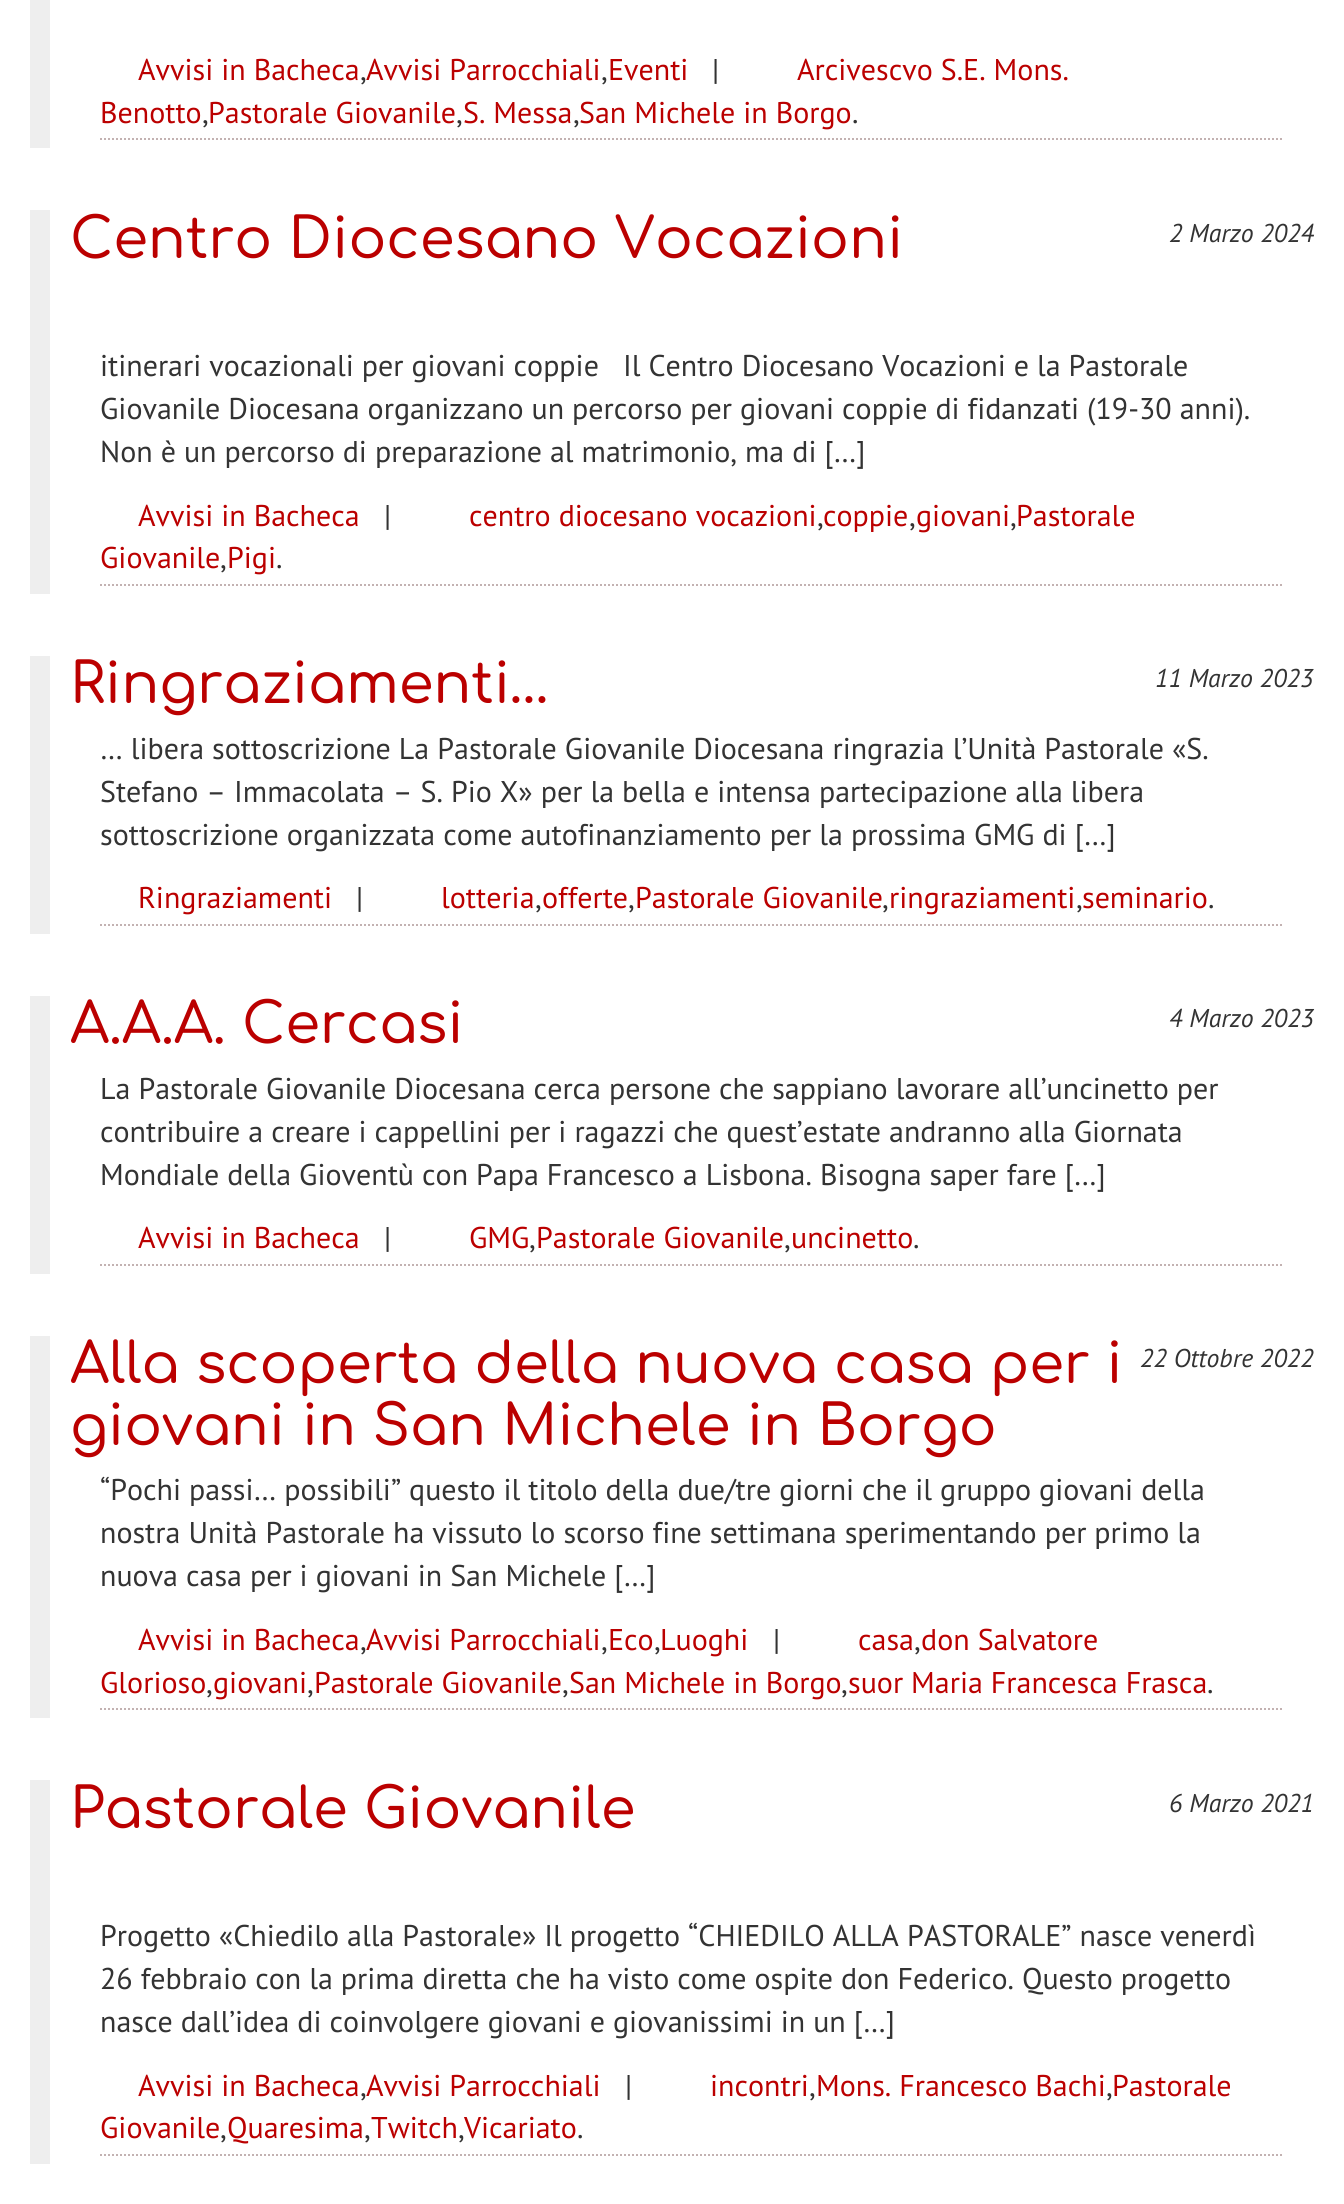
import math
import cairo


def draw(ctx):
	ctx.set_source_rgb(1, 1, 1)
	ctx.paint()
	ctx.set_source_rgb(0.933, 0.933, 0.933)
	ctx.rectangle(30, 0, 20, 148)
	ctx.fill()
	ctx.new_path()
	ctx.move_to(100, 139)
	ctx.line_to(1284, 139)
	ctx.set_source_rgb(0.765, 0.698, 0.698)
	ctx.set_dash([2, 2])
	ctx.stroke()
	ctx.select_font_face('PT Sans')
	ctx.set_font_size(30)
	ctx.set_source_rgb(0.733, 0, 0)
	ctx.move_to(138, 80)
	ctx.show_text('Avvisi in Bacheca')
	ctx.set_source_rgb(0.2, 0.2, 0.2)
	ctx.move_to(360, 80)
	ctx.show_text(',')
	ctx.set_source_rgb(0.733, 0, 0)
	ctx.move_to(366, 80)
	ctx.show_text('Avvisi Parrocchiali')
	ctx.set_source_rgb(0.2, 0.2, 0.2)
	ctx.move_to(601, 80)
	ctx.show_text(',')
	ctx.set_source_rgb(0.733, 0, 0)
	ctx.move_to(608, 80)
	ctx.show_text('Eventi')
	ctx.set_source_rgb(0.2, 0.2, 0.2)
	ctx.move_to(712, 80)
	ctx.show_text('|')
	ctx.set_source_rgb(0.733, 0, 0)
	ctx.move_to(797, 80)
	ctx.show_text('Arcivescvo S.E. Mons.')
	ctx.move_to(100, 123)
	ctx.show_text('Benotto')
	ctx.set_source_rgb(0.2, 0.2, 0.2)
	ctx.move_to(202, 123)
	ctx.show_text(',')
	ctx.set_source_rgb(0.733, 0, 0)
	ctx.move_to(208, 123)
	ctx.show_text('Pastorale Giovanile')
	ctx.set_source_rgb(0.2, 0.2, 0.2)
	ctx.move_to(456, 123)
	ctx.show_text(',')
	ctx.set_source_rgb(0.733, 0, 0)
	ctx.move_to(463, 123)
	ctx.show_text('S. Messa')
	ctx.set_source_rgb(0.2, 0.2, 0.2)
	ctx.move_to(573, 123)
	ctx.show_text(',')
	ctx.set_source_rgb(0.733, 0, 0)
	ctx.move_to(579, 123)
	ctx.show_text('San Michele in Borgo')
	ctx.set_source_rgb(0.2, 0.2, 0.2)
	ctx.move_to(852, 123)
	ctx.show_text('.')
	ctx.set_source_rgb(0.933, 0.933, 0.933)
	ctx.rectangle(30, 210, 20, 384)
	ctx.fill()
	ctx.select_font_face('Comfortaa Medium')
	ctx.set_font_size(56)
	ctx.set_source_rgb(0.733, 0, 0)
	ctx.move_to(70, 258)
	ctx.show_text('Centro Diocesano Vocazioni')
	ctx.select_font_face('PT Sans', cairo.FONT_SLANT_ITALIC)
	ctx.set_font_size(25.75)
	ctx.set_source_rgb(0.2, 0.2, 0.2)
	ctx.move_to(1169, 242)
	ctx.show_text('2 Marzo 2024')
	ctx.select_font_face('PT Sans')
	ctx.set_font_size(30)
	for x, y, s in [
		(100, 376, 'itinerari vocazionali per giovani coppie   Il Centro Diocesano Vocazioni e la Pastorale'),
		(100, 419, 'Giovanile Diocesana organizzano un percorso per giovani coppie di fidanzati (19-30 anni).'),
		(100, 462, 'Non è un percorso di preparazione al matrimonio, ma di […]'),
	]:
		ctx.move_to(x, y)
		ctx.show_text(s)
	ctx.new_path()
	ctx.move_to(100, 585)
	ctx.line_to(1284, 585)
	ctx.set_source_rgb(0.765, 0.698, 0.698)
	ctx.stroke()
	ctx.set_source_rgb(0.733, 0, 0)
	ctx.move_to(138, 526)
	ctx.show_text('Avvisi in Bacheca')
	ctx.set_source_rgb(0.2, 0.2, 0.2)
	ctx.move_to(384, 526)
	ctx.show_text('|')
	ctx.set_source_rgb(0.733, 0, 0)
	ctx.move_to(469, 526)
	ctx.show_text('centro diocesano vocazioni')
	ctx.set_source_rgb(0.2, 0.2, 0.2)
	ctx.move_to(817, 526)
	ctx.show_text(',')
	ctx.set_source_rgb(0.733, 0, 0)
	ctx.move_to(823, 526)
	ctx.show_text('coppie')
	ctx.set_source_rgb(0.2, 0.2, 0.2)
	ctx.move_to(909, 526)
	ctx.show_text(',')
	ctx.set_source_rgb(0.733, 0, 0)
	ctx.move_to(916, 526)
	ctx.show_text('giovani')
	ctx.set_source_rgb(0.2, 0.2, 0.2)
	ctx.move_to(1010, 526)
	ctx.show_text(',')
	ctx.set_source_rgb(0.733, 0, 0)
	ctx.move_to(1016, 526)
	ctx.show_text('Pastorale')
	ctx.move_to(100, 568)
	ctx.show_text('Giovanile')
	ctx.set_source_rgb(0.2, 0.2, 0.2)
	ctx.move_to(220, 568)
	ctx.show_text(',')
	ctx.set_source_rgb(0.733, 0, 0)
	ctx.move_to(227, 568)
	ctx.show_text('Pigi')
	ctx.set_source_rgb(0.2, 0.2, 0.2)
	ctx.move_to(276, 568)
	ctx.show_text('.')
	ctx.set_source_rgb(0.933, 0.933, 0.933)
	ctx.rectangle(30, 656, 20, 278)
	ctx.fill()
	ctx.select_font_face('Comfortaa Medium')
	ctx.set_font_size(56)
	ctx.set_source_rgb(0.733, 0, 0)
	ctx.move_to(70, 703)
	ctx.show_text('Ringraziamenti…')
	ctx.select_font_face('PT Sans', cairo.FONT_SLANT_ITALIC)
	ctx.set_font_size(25.75)
	ctx.set_source_rgb(0.2, 0.2, 0.2)
	ctx.move_to(1155, 687)
	ctx.show_text('11 Marzo 2023')
	ctx.select_font_face('PT Sans')
	ctx.set_font_size(30)
	for x, y, s in [
		(100, 759, '… libera sottoscrizione La Pastorale Giovanile Diocesana ringrazia l’Unità Pastorale «S.'),
		(100, 802, 'Stefano – Immacolata – S. Pio X» per la bella e intensa partecipazione alla libera'),
		(100, 845, 'sottoscrizione organizzata come autofinanziamento per la prossima GMG di […]'),
	]:
		ctx.move_to(x, y)
		ctx.show_text(s)
	ctx.new_path()
	ctx.move_to(100, 925)
	ctx.line_to(1284, 925)
	ctx.set_source_rgb(0.765, 0.698, 0.698)
	ctx.stroke()
	ctx.set_source_rgb(0.733, 0, 0)
	ctx.move_to(138, 908)
	ctx.show_text('Ringraziamenti')
	ctx.set_source_rgb(0.2, 0.2, 0.2)
	ctx.move_to(356, 908)
	ctx.show_text('|')
	ctx.set_source_rgb(0.733, 0, 0)
	ctx.move_to(441, 908)
	ctx.show_text('lotteria')
	ctx.set_source_rgb(0.2, 0.2, 0.2)
	ctx.move_to(535, 908)
	ctx.show_text(',')
	ctx.set_source_rgb(0.733, 0, 0)
	ctx.move_to(542, 908)
	ctx.show_text('offerte')
	ctx.set_source_rgb(0.2, 0.2, 0.2)
	ctx.move_to(628, 908)
	ctx.show_text(',')
	ctx.set_source_rgb(0.733, 0, 0)
	ctx.move_to(635, 908)
	ctx.show_text('Pastorale Giovanile')
	ctx.set_source_rgb(0.2, 0.2, 0.2)
	ctx.move_to(882, 908)
	ctx.show_text(',')
	ctx.set_source_rgb(0.733, 0, 0)
	ctx.move_to(889, 908)
	ctx.show_text('ringraziamenti')
	ctx.set_source_rgb(0.2, 0.2, 0.2)
	ctx.move_to(1076, 908)
	ctx.show_text(',')
	ctx.set_source_rgb(0.733, 0, 0)
	ctx.move_to(1082, 908)
	ctx.show_text('seminario')
	ctx.set_source_rgb(0.2, 0.2, 0.2)
	ctx.move_to(1208, 908)
	ctx.show_text('.')
	ctx.set_source_rgb(0.933, 0.933, 0.933)
	ctx.rectangle(30, 996, 20, 278)
	ctx.fill()
	ctx.select_font_face('Comfortaa Medium')
	ctx.set_font_size(56)
	ctx.set_source_rgb(0.733, 0, 0)
	ctx.move_to(70, 1043)
	ctx.show_text('A.A.A. Cercasi')
	ctx.select_font_face('PT Sans', cairo.FONT_SLANT_ITALIC)
	ctx.set_font_size(25.75)
	ctx.set_source_rgb(0.2, 0.2, 0.2)
	ctx.move_to(1169, 1027)
	ctx.show_text('4 Marzo 2023')
	ctx.select_font_face('PT Sans')
	ctx.set_font_size(30)
	for x, y, s in [
		(100, 1099, 'La Pastorale Giovanile Diocesana cerca persone che sappiano lavorare all’uncinetto per'),
		(100, 1142, 'contribuire a creare i cappellini per i ragazzi che quest’estate andranno alla Giornata'),
		(100, 1185, 'Mondiale della Gioventù con Papa Francesco a Lisbona. Bisogna saper fare […]'),
	]:
		ctx.move_to(x, y)
		ctx.show_text(s)
	ctx.new_path()
	ctx.move_to(100, 1265)
	ctx.line_to(1284, 1265)
	ctx.set_source_rgb(0.765, 0.698, 0.698)
	ctx.stroke()
	ctx.set_source_rgb(0.733, 0, 0)
	ctx.move_to(138, 1248)
	ctx.show_text('Avvisi in Bacheca')
	ctx.set_source_rgb(0.2, 0.2, 0.2)
	ctx.move_to(384, 1248)
	ctx.show_text('|')
	ctx.set_source_rgb(0.733, 0, 0)
	ctx.move_to(469, 1248)
	ctx.show_text('GMG')
	ctx.set_source_rgb(0.2, 0.2, 0.2)
	ctx.move_to(529, 1248)
	ctx.show_text(',')
	ctx.set_source_rgb(0.733, 0, 0)
	ctx.move_to(536, 1248)
	ctx.show_text('Pastorale Giovanile')
	ctx.set_source_rgb(0.2, 0.2, 0.2)
	ctx.move_to(784, 1248)
	ctx.show_text(',')
	ctx.set_source_rgb(0.733, 0, 0)
	ctx.move_to(791, 1248)
	ctx.show_text('uncinetto')
	ctx.set_source_rgb(0.2, 0.2, 0.2)
	ctx.move_to(913, 1248)
	ctx.show_text('.')
	ctx.set_source_rgb(0.933, 0.933, 0.933)
	ctx.rectangle(30, 1336, 20, 382)
	ctx.fill()
	ctx.select_font_face('Comfortaa Medium')
	ctx.set_font_size(56)
	ctx.set_source_rgb(0.733, 0, 0)
	ctx.move_to(70, 1383)
	ctx.show_text('Alla scoperta della nuova casa per i')
	ctx.move_to(70, 1445)
	ctx.show_text('giovani in San Michele in Borgo')
	ctx.select_font_face('PT Sans', cairo.FONT_SLANT_ITALIC)
	ctx.set_font_size(25.75)
	ctx.set_source_rgb(0.2, 0.2, 0.2)
	ctx.move_to(1140, 1367)
	ctx.show_text('22 Ottobre 2022')
	ctx.select_font_face('PT Sans')
	ctx.set_font_size(30)
	for x, y, s in [
		(100, 1500, '“Pochi passi… possibili” questo il titolo della due/tre giorni che il gruppo giovani della'),
		(100, 1543, 'nostra Unità Pastorale ha vissuto lo scorso fine settimana sperimentando per primo la'),
		(100, 1586, 'nuova casa per i giovani in San Michele […]'),
	]:
		ctx.move_to(x, y)
		ctx.show_text(s)
	ctx.new_path()
	ctx.move_to(100, 1709)
	ctx.line_to(1284, 1709)
	ctx.set_source_rgb(0.765, 0.698, 0.698)
	ctx.stroke()
	ctx.set_source_rgb(0.733, 0, 0)
	ctx.move_to(138, 1650)
	ctx.show_text('Avvisi in Bacheca')
	ctx.set_source_rgb(0.2, 0.2, 0.2)
	ctx.move_to(360, 1650)
	ctx.show_text(',')
	ctx.set_source_rgb(0.733, 0, 0)
	ctx.move_to(366, 1650)
	ctx.show_text('Avvisi Parrocchiali')
	ctx.set_source_rgb(0.2, 0.2, 0.2)
	ctx.move_to(601, 1650)
	ctx.show_text(',')
	ctx.set_source_rgb(0.733, 0, 0)
	ctx.move_to(608, 1650)
	ctx.show_text('Eco')
	ctx.set_source_rgb(0.2, 0.2, 0.2)
	ctx.move_to(654, 1650)
	ctx.show_text(',')
	ctx.set_source_rgb(0.733, 0, 0)
	ctx.move_to(660, 1650)
	ctx.show_text('Luoghi')
	ctx.set_source_rgb(0.2, 0.2, 0.2)
	ctx.move_to(773, 1650)
	ctx.show_text('|')
	ctx.set_source_rgb(0.733, 0, 0)
	ctx.move_to(858, 1650)
	ctx.show_text('casa')
	ctx.set_source_rgb(0.2, 0.2, 0.2)
	ctx.move_to(914, 1650)
	ctx.show_text(',')
	ctx.set_source_rgb(0.733, 0, 0)
	ctx.move_to(921, 1650)
	ctx.show_text('don Salvatore')
	ctx.move_to(100, 1693)
	ctx.show_text('Glorioso')
	ctx.set_source_rgb(0.2, 0.2, 0.2)
	ctx.move_to(206, 1693)
	ctx.show_text(',')
	ctx.set_source_rgb(0.733, 0, 0)
	ctx.move_to(213, 1693)
	ctx.show_text('giovani')
	ctx.set_source_rgb(0.2, 0.2, 0.2)
	ctx.move_to(307, 1693)
	ctx.show_text(',')
	ctx.set_source_rgb(0.733, 0, 0)
	ctx.move_to(314, 1693)
	ctx.show_text('Pastorale Giovanile')
	ctx.set_source_rgb(0.2, 0.2, 0.2)
	ctx.move_to(562, 1693)
	ctx.show_text(',')
	ctx.set_source_rgb(0.733, 0, 0)
	ctx.move_to(569, 1693)
	ctx.show_text('San Michele in Borgo')
	ctx.set_source_rgb(0.2, 0.2, 0.2)
	ctx.move_to(841, 1693)
	ctx.show_text(',')
	ctx.set_source_rgb(0.733, 0, 0)
	ctx.move_to(848, 1693)
	ctx.show_text('suor Maria Francesca Frasca')
	ctx.set_source_rgb(0.2, 0.2, 0.2)
	ctx.move_to(1207, 1693)
	ctx.show_text('.')
	ctx.set_source_rgb(0.933, 0.933, 0.933)
	ctx.rectangle(30, 1780, 20, 384)
	ctx.fill()
	ctx.select_font_face('Comfortaa Medium')
	ctx.set_font_size(56)
	ctx.set_source_rgb(0.733, 0, 0)
	ctx.move_to(70, 1828)
	ctx.show_text('Pastorale Giovanile')
	ctx.select_font_face('PT Sans', cairo.FONT_SLANT_ITALIC)
	ctx.set_font_size(25.75)
	ctx.set_source_rgb(0.2, 0.2, 0.2)
	ctx.move_to(1169, 1812)
	ctx.show_text('6 Marzo 2021')
	ctx.select_font_face('PT Sans')
	ctx.set_font_size(30)
	for x, y, s in [
		(100, 1946, 'Progetto «Chiedilo alla Pastorale» Il progetto “CHIEDILO ALLA PASTORALE” nasce venerdì'),
		(100, 1989, '26 febbraio con la prima diretta che ha visto come ospite don Federico. Questo progetto'),
		(100, 2032, 'nasce dall’idea di coinvolgere giovani e giovanissimi in un […]'),
	]:
		ctx.move_to(x, y)
		ctx.show_text(s)
	ctx.new_path()
	ctx.move_to(100, 2155)
	ctx.line_to(1284, 2155)
	ctx.set_source_rgb(0.765, 0.698, 0.698)
	ctx.stroke()
	ctx.set_source_rgb(0.733, 0, 0)
	ctx.move_to(138, 2096)
	ctx.show_text('Avvisi in Bacheca')
	ctx.set_source_rgb(0.2, 0.2, 0.2)
	ctx.move_to(360, 2096)
	ctx.show_text(',')
	ctx.set_source_rgb(0.733, 0, 0)
	ctx.move_to(366, 2096)
	ctx.show_text('Avvisi Parrocchiali')
	ctx.set_source_rgb(0.2, 0.2, 0.2)
	ctx.move_to(625, 2096)
	ctx.show_text('|')
	ctx.set_source_rgb(0.733, 0, 0)
	ctx.move_to(710, 2096)
	ctx.show_text('incontri')
	ctx.set_source_rgb(0.2, 0.2, 0.2)
	ctx.move_to(809, 2096)
	ctx.show_text(',')
	ctx.set_source_rgb(0.733, 0, 0)
	ctx.move_to(816, 2096)
	ctx.show_text('Mons. Francesco Bachi')
	ctx.set_source_rgb(0.2, 0.2, 0.2)
	ctx.move_to(1106, 2096)
	ctx.show_text(',')
	ctx.set_source_rgb(0.733, 0, 0)
	ctx.move_to(1112, 2096)
	ctx.show_text('Pastorale')
	ctx.move_to(100, 2138)
	ctx.show_text('Giovanile')
	ctx.set_source_rgb(0.2, 0.2, 0.2)
	ctx.move_to(220, 2138)
	ctx.show_text(',')
	ctx.set_source_rgb(0.733, 0, 0)
	ctx.move_to(227, 2138)
	ctx.show_text('Quaresima')
	ctx.set_source_rgb(0.2, 0.2, 0.2)
	ctx.move_to(364, 2138)
	ctx.show_text(',')
	ctx.set_source_rgb(0.733, 0, 0)
	ctx.move_to(371, 2138)
	ctx.show_text('Twitch')
	ctx.set_source_rgb(0.2, 0.2, 0.2)
	ctx.move_to(458, 2138)
	ctx.show_text(',')
	ctx.set_source_rgb(0.733, 0, 0)
	ctx.move_to(464, 2138)
	ctx.show_text('Vicariato')
	ctx.set_source_rgb(0.2, 0.2, 0.2)
	ctx.move_to(577, 2138)
	ctx.show_text('.')


surface = cairo.ImageSurface(cairo.FORMAT_RGB24, 1344, 2204)
ctx = cairo.Context(surface)
options = cairo.FontOptions()
options.set_hint_metrics(cairo.HINT_METRICS_OFF)
options.set_hint_style(cairo.HINT_STYLE_NONE)
ctx.set_font_options(options)
ctx.set_miter_limit(4)
draw(ctx)
surface.write_to_png('image.png')
